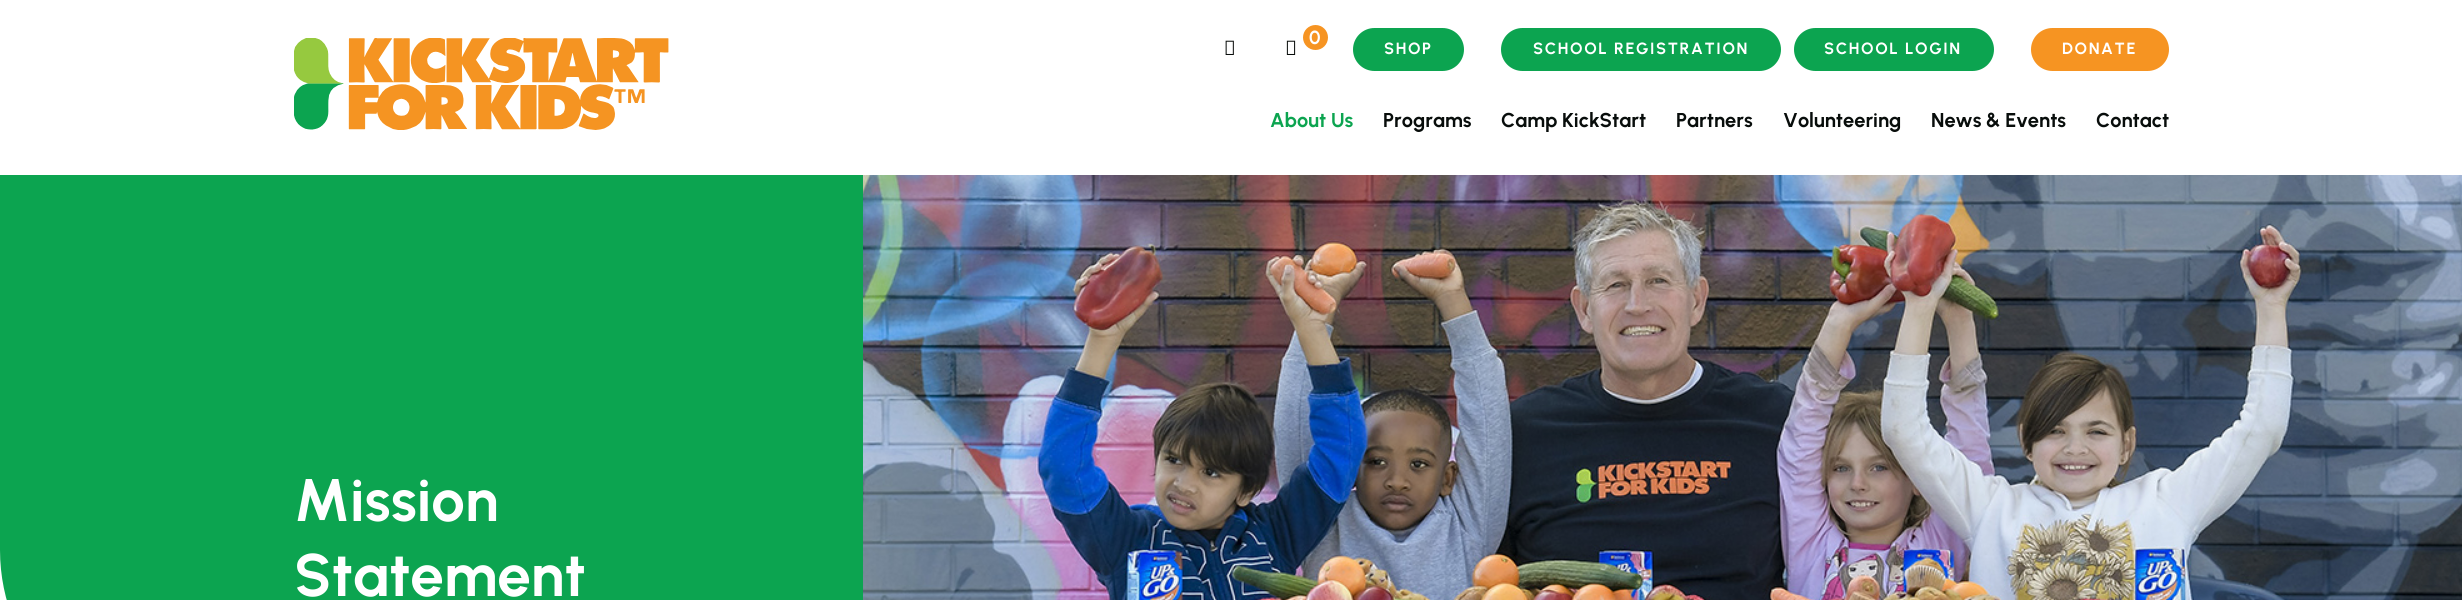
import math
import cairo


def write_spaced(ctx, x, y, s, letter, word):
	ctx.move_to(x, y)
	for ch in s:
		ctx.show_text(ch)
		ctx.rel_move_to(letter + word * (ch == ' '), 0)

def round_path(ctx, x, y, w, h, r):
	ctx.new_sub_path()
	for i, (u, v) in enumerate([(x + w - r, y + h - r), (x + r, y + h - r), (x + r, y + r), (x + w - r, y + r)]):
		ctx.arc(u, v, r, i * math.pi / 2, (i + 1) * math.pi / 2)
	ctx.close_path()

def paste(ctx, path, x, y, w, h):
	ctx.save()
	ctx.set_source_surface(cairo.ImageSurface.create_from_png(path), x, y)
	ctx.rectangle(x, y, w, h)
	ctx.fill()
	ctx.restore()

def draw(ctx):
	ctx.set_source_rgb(1, 1, 1)
	ctx.paint()
	paste(ctx, 'media/1.png', 294, 38, 375, 92)
	ctx.set_source_rgb(0.961, 0.58, 0.133)
	ctx.arc(1315.5, 37.5, 12.5, 0, 2 * math.pi)
	ctx.fill()
	ctx.select_font_face('Urbanist', cairo.FONT_SLANT_NORMAL, cairo.FONT_WEIGHT_BOLD)
	ctx.set_font_size(19)
	ctx.set_source_rgb(1, 1, 1)
	write_spaced(ctx, 1309, 44, '0', 1.6, 0)
	paste(ctx, 'media/2.png', 1286, 40, 10, 15)
	paste(ctx, 'media/3.png', 1225, 40, 9, 15)
	ctx.set_source_rgb(0.047, 0.643, 0.314)
	round_path(ctx, 1353, 28, 111, 43, 21.5)
	ctx.fill()
	ctx.set_font_size(16.25)
	ctx.set_source_rgb(1, 1, 1)
	write_spaced(ctx, 1384, 54, 'SHOP', 1.6, 0)
	ctx.set_source_rgb(0.047, 0.643, 0.314)
	round_path(ctx, 1501, 28, 280, 43, 21.5)
	ctx.fill()
	ctx.set_source_rgb(1, 1, 1)
	write_spaced(ctx, 1533, 54, 'SCHOOL REGISTRATION', 1.6, 0)
	ctx.set_source_rgb(0.047, 0.643, 0.314)
	round_path(ctx, 1794, 28, 200, 43, 21.5)
	ctx.fill()
	ctx.set_source_rgb(1, 1, 1)
	write_spaced(ctx, 1824, 54, 'SCHOOL LOGIN', 1.6, 0)
	ctx.set_source_rgb(0.961, 0.58, 0.133)
	round_path(ctx, 2031, 28, 138, 43, 21.5)
	ctx.fill()
	ctx.set_source_rgb(1, 1, 1)
	write_spaced(ctx, 2062, 54, 'DONATE', 1.6, 0)
	ctx.set_font_size(20)
	ctx.set_source_rgb(0.047, 0.643, 0.314)
	ctx.move_to(1270, 127)
	ctx.show_text('About Us')
	ctx.set_source_rgb(0.035, 0.051, 0.043)
	for x, y, s in [
		(1383, 127, 'Programs'),
		(1501, 127, 'Camp KickStart'),
		(1676, 127, 'Partners'),
		(1783, 127, 'Volunteering'),
		(1931, 127, 'News & Events'),
		(2096, 127, 'Contact'),
	]:
		ctx.move_to(x, y)
		ctx.show_text(s)
	ctx.set_source_rgb(0.047, 0.643, 0.314)
	ctx.new_path()
	ctx.move_to(0, 175)
	ctx.line_to(863, 175)
	ctx.line_to(863, 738)
	ctx.line_to(188, 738)
	ctx.curve_to(84, 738, 0, 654, 0, 550)
	ctx.close_path()
	ctx.fill()
	paste(ctx, 'media/4.png', 863, 175, 1599, 425)
	ctx.set_font_size(60)
	ctx.set_source_rgb(1, 1, 1)
	ctx.move_to(294, 521)
	ctx.show_text('Mission')
	ctx.move_to(294, 596)
	ctx.show_text('Statement')


surface = cairo.ImageSurface(cairo.FORMAT_RGB24, 2462, 600)
ctx = cairo.Context(surface)
options = cairo.FontOptions()
options.set_hint_metrics(cairo.HINT_METRICS_OFF)
options.set_hint_style(cairo.HINT_STYLE_NONE)
ctx.set_font_options(options)
ctx.set_miter_limit(4)
draw(ctx)
surface.write_to_png('image.png')
